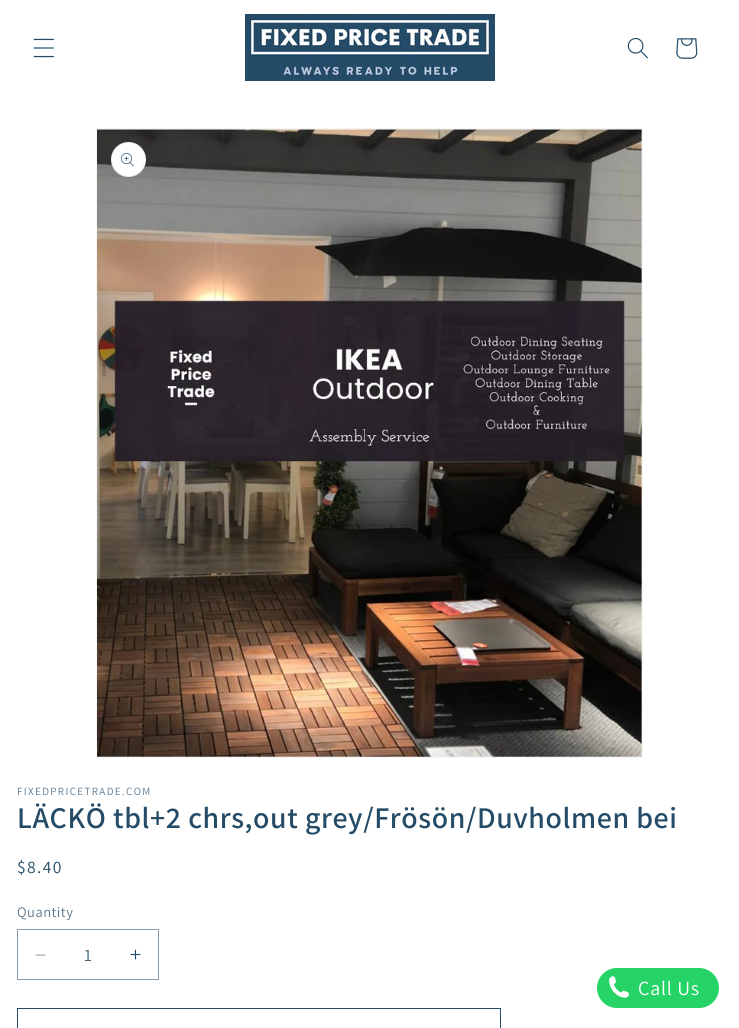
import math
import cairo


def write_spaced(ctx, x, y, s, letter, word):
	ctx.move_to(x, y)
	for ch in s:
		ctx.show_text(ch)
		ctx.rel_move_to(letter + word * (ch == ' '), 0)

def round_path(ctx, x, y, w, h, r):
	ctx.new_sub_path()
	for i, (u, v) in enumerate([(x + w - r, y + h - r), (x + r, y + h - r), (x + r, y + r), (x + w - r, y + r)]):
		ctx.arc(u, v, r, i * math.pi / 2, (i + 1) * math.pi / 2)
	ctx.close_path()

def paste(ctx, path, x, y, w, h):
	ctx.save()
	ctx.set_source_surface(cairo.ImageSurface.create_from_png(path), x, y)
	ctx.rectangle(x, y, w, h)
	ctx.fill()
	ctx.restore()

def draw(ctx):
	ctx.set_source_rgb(1, 1, 1)
	ctx.paint()
	paste(ctx, 'media/1.png', 33, 38, 21, 20)
	paste(ctx, 'media/2.png', 245, 14, 250, 67)
	paste(ctx, 'media/3.png', 627, 37, 21, 22)
	paste(ctx, 'media/4.png', 676, 38, 22, 21)
	ctx.rectangle(96.5, 128.5, 546, 629)
	ctx.set_source_rgb(0.957, 0.965, 0.969)
	ctx.set_line_width(1)
	ctx.stroke()
	paste(ctx, 'media/5.png', 97, 129, 545, 628)
	ctx.set_source_rgb(1, 1, 1)
	ctx.arc(128.5, 159.5, 17.5, 0, 2 * math.pi)
	ctx.fill()
	ctx.arc(128.5, 159.5, 17, 0, 2 * math.pi)
	ctx.set_source_rgba(0.141, 0.294, 0.404, 0.1)
	ctx.stroke()
	paste(ctx, 'media/6.png', 121, 153, 13, 14)
	ctx.select_font_face('Assistant')
	ctx.set_font_size(11)
	ctx.set_source_rgb(0.357, 0.471, 0.553)
	write_spaced(ctx, 17, 795, 'FIXEDPRICETRADE.COM', 1.4, 0)
	ctx.select_font_face('Assistant SemiBold')
	ctx.set_font_size(30)
	ctx.set_source_rgb(0.141, 0.294, 0.404)
	write_spaced(ctx, 17, 828, 'LÄCKÖ tbl+2 chrs,out grey/Frösön/Duvholmen bei', 0.6, 0)
	ctx.select_font_face('Assistant')
	ctx.set_font_size(17.5)
	write_spaced(ctx, 17, 873, '$8.40', 1.4, 0)
	ctx.set_font_size(14.5)
	ctx.set_source_rgb(0.357, 0.471, 0.553)
	write_spaced(ctx, 17, 917, 'Quantity', 0.5, 0)
	paste(ctx, 'media/7.png', 35, 954, 11, 2)
	paste(ctx, 'media/8.png', 130, 949, 11, 11)
	ctx.rectangle(17.5, 929.5, 141, 50)
	ctx.set_source_rgb(0.529, 0.612, 0.671)
	ctx.stroke()
	ctx.set_font_size(17.5)
	ctx.set_source_rgb(0.271, 0.4, 0.494)
	ctx.move_to(84, 961)
	ctx.show_text('1')
	ctx.rectangle(17.5, 1008.5, 483, 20)
	ctx.set_source_rgb(0.141, 0.294, 0.404)
	ctx.stroke()
	ctx.set_source_rgb(0.145, 0.827, 0.4)
	round_path(ctx, 597, 968, 122, 40, 20)
	ctx.fill()
	paste(ctx, 'media/9.png', 609, 976, 20, 22)
	ctx.set_font_size(20)
	ctx.set_source_rgb(1, 1, 1)
	write_spaced(ctx, 638, 995, 'Call Us', 0.75, 0)


surface = cairo.ImageSurface(cairo.FORMAT_RGB24, 739, 1028)
ctx = cairo.Context(surface)
options = cairo.FontOptions()
options.set_hint_metrics(cairo.HINT_METRICS_OFF)
options.set_hint_style(cairo.HINT_STYLE_NONE)
ctx.set_font_options(options)
ctx.set_miter_limit(4)
draw(ctx)
surface.write_to_png('image.png')
